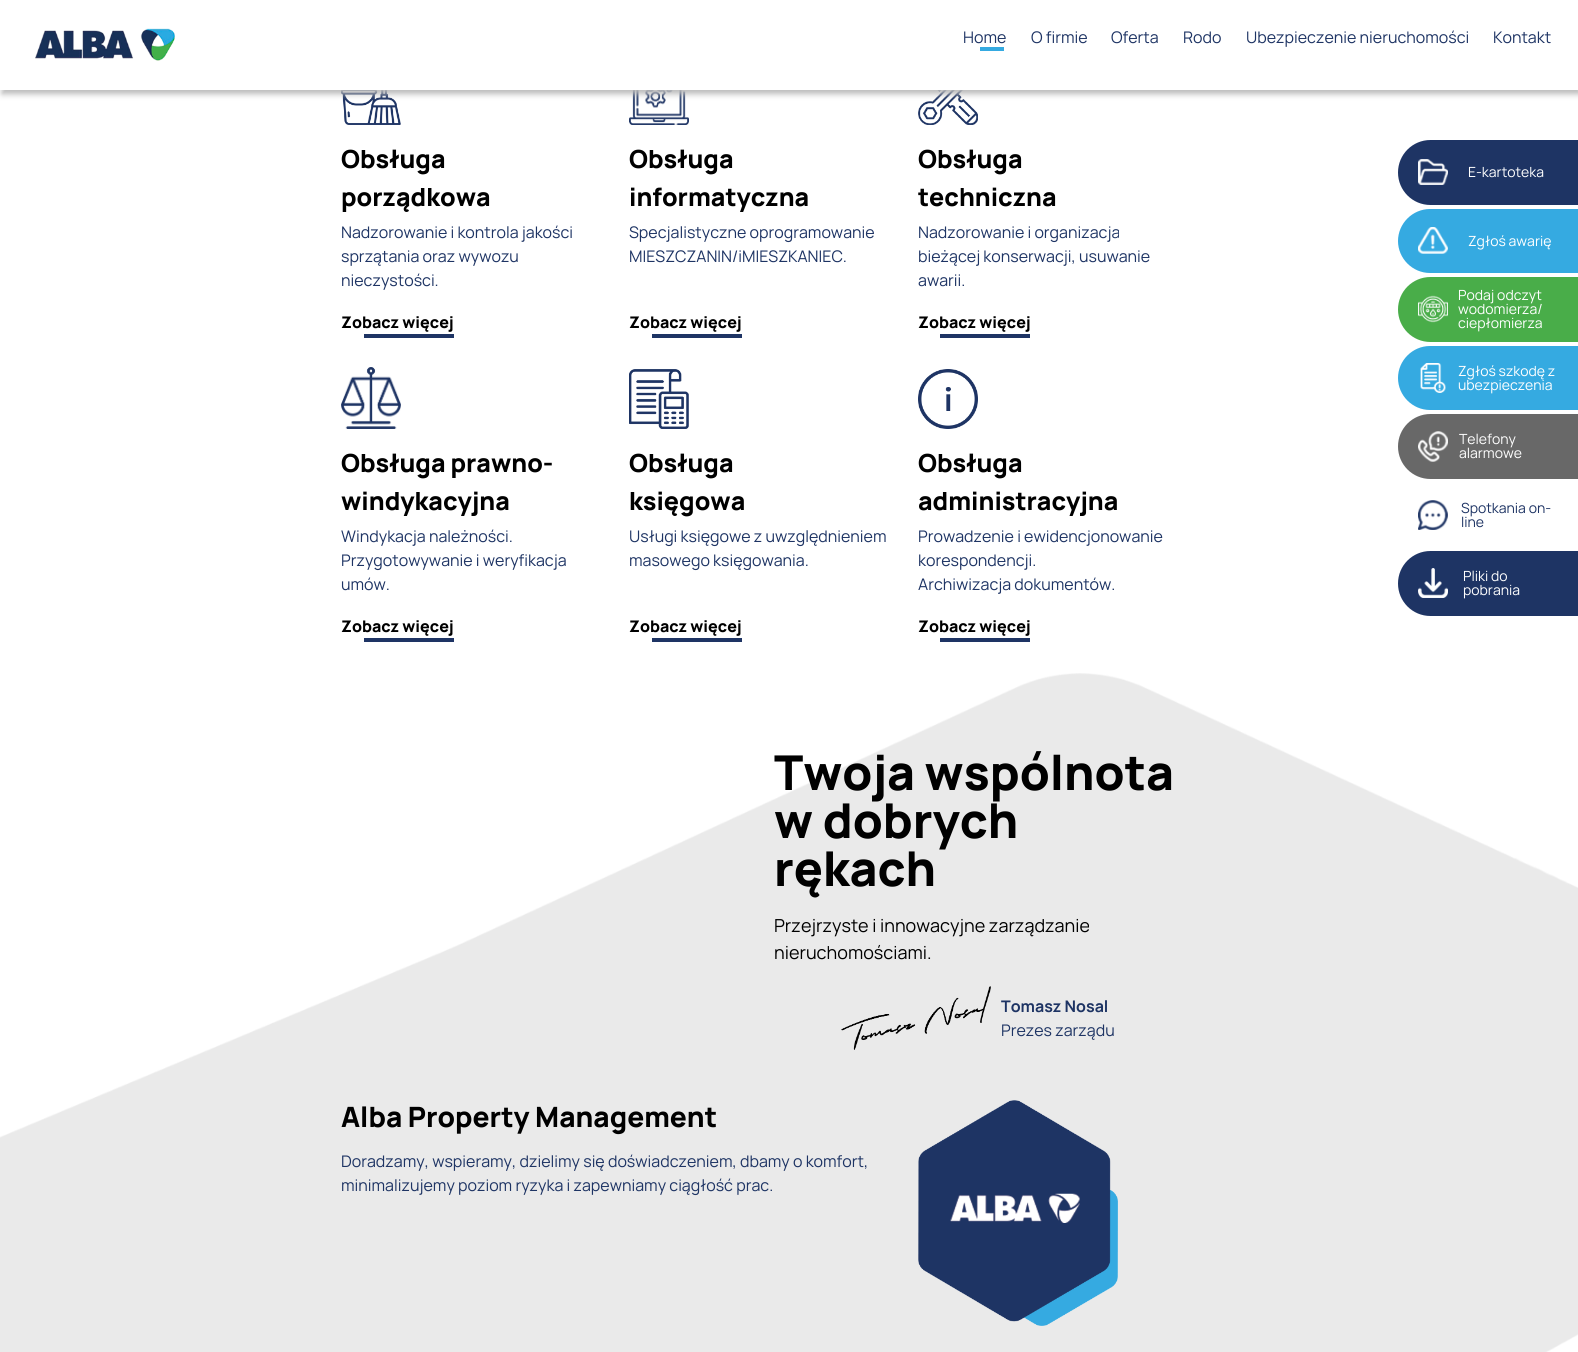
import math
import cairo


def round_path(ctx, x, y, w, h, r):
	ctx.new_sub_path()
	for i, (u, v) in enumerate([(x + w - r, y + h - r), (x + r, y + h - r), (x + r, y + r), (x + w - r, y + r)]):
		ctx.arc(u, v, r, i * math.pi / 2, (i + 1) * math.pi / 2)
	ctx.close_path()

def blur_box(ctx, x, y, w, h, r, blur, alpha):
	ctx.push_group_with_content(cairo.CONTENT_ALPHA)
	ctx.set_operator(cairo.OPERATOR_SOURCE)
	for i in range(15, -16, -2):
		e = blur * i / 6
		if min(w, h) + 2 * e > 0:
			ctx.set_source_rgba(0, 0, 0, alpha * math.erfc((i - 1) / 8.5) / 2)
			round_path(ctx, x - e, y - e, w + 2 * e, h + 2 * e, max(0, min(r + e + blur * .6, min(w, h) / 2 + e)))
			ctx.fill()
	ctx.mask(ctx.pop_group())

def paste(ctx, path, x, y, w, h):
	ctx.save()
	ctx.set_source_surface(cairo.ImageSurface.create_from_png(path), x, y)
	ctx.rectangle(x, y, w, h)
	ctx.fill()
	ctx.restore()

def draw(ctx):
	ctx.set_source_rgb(1, 1, 1)
	ctx.paint()
	paste(ctx, 'media/2.png', 341, 90, 60, 35)
	paste(ctx, 'media/3.png', 629, 90, 60, 35)
	paste(ctx, 'media/4.png', 918, 90, 60, 35)
	ctx.set_source_rgb(0.725, 0.725, 0.725)
	blur_box(ctx, 2, 4, 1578, 90, 0, 3, 1)
	ctx.set_source_rgb(1, 1, 1)
	ctx.rectangle(0, 0, 1578, 90)
	ctx.fill()
	paste(ctx, 'media/1.png', 35, 28, 140, 33)
	ctx.select_font_face('Manrope')
	ctx.set_font_size(16)
	ctx.set_source_rgb(0.118, 0.204, 0.392)
	ctx.move_to(963, 43)
	ctx.show_text('Home')
	ctx.set_source_rgb(0.208, 0.667, 0.882)
	ctx.rectangle(980, 47, 24, 4)
	ctx.fill()
	ctx.set_source_rgb(0.118, 0.204, 0.392)
	for x, y, s in [
		(1031, 43, 'O firmie'),
		(1111, 43, 'Oferta'),
		(1183, 43, 'Rodo'),
		(1246, 43, 'Ubezpieczenie nieruchomości'),
		(1493, 43, 'Kontakt'),
	]:
		ctx.move_to(x, y)
		ctx.show_text(s)
	ctx.select_font_face('Manrope ExtraBold')
	ctx.set_font_size(25)
	ctx.set_source_rgb(0, 0, 0)
	ctx.move_to(341, 168)
	ctx.show_text('Obsługa')
	ctx.move_to(341, 206)
	ctx.show_text('porządkowa')
	ctx.select_font_face('Manrope')
	ctx.set_font_size(16)
	ctx.set_source_rgb(0.118, 0.204, 0.392)
	for x, y, s in [
		(341, 238, 'Nadzorowanie i kontrola jakości'),
		(341, 262, 'sprzątania oraz wywozu'),
		(341, 286, 'nieczystości.'),
	]:
		ctx.move_to(x, y)
		ctx.show_text(s)
	ctx.select_font_face('Manrope ExtraBold')
	ctx.set_source_rgb(0, 0, 0)
	ctx.move_to(341, 328)
	ctx.show_text('Zobacz więcej')
	ctx.set_source_rgb(0.118, 0.204, 0.392)
	ctx.rectangle(364, 334, 90, 4)
	ctx.fill()
	ctx.set_font_size(25)
	ctx.set_source_rgb(0, 0, 0)
	ctx.move_to(629, 168)
	ctx.show_text('Obsługa')
	ctx.move_to(629, 206)
	ctx.show_text('informatyczna')
	ctx.select_font_face('Manrope')
	ctx.set_font_size(16)
	ctx.set_source_rgb(0.118, 0.204, 0.392)
	ctx.move_to(629, 238)
	ctx.show_text('Specjalistyczne oprogramowanie')
	ctx.move_to(629, 262)
	ctx.show_text('MIESZCZANIN/iMIESZKANIEC.')
	ctx.select_font_face('Manrope ExtraBold')
	ctx.set_source_rgb(0, 0, 0)
	ctx.move_to(629, 328)
	ctx.show_text('Zobacz więcej')
	ctx.set_source_rgb(0.118, 0.204, 0.392)
	ctx.rectangle(652, 334, 90, 4)
	ctx.fill()
	ctx.set_font_size(25)
	ctx.set_source_rgb(0, 0, 0)
	ctx.move_to(918, 168)
	ctx.show_text('Obsługa')
	ctx.move_to(918, 206)
	ctx.show_text('techniczna')
	ctx.select_font_face('Manrope')
	ctx.set_font_size(16)
	ctx.set_source_rgb(0.118, 0.204, 0.392)
	for x, y, s in [
		(918, 238, 'Nadzorowanie i organizacja'),
		(918, 262, 'bieżącej konserwacji, usuwanie'),
		(918, 286, 'awarii.'),
	]:
		ctx.move_to(x, y)
		ctx.show_text(s)
	ctx.select_font_face('Manrope ExtraBold')
	ctx.set_source_rgb(0, 0, 0)
	ctx.move_to(918, 328)
	ctx.show_text('Zobacz więcej')
	ctx.set_source_rgb(0.118, 0.204, 0.392)
	ctx.rectangle(940, 334, 90, 4)
	ctx.fill()
	paste(ctx, 'media/5.png', 341, 367, 60, 62)
	ctx.set_font_size(25)
	ctx.set_source_rgb(0, 0, 0)
	ctx.move_to(341, 472)
	ctx.show_text('Obsługa prawno-')
	ctx.move_to(341, 510)
	ctx.show_text('windykacyjna')
	ctx.select_font_face('Manrope')
	ctx.set_font_size(16)
	ctx.set_source_rgb(0.118, 0.204, 0.392)
	for x, y, s in [
		(341, 542, 'Windykacja należności.'),
		(341, 566, 'Przygotowywanie i weryfikacja'),
		(341, 590, 'umów.'),
	]:
		ctx.move_to(x, y)
		ctx.show_text(s)
	ctx.select_font_face('Manrope ExtraBold')
	ctx.set_source_rgb(0, 0, 0)
	ctx.move_to(341, 632)
	ctx.show_text('Zobacz więcej')
	ctx.set_source_rgb(0.118, 0.204, 0.392)
	ctx.rectangle(364, 638, 90, 4)
	ctx.fill()
	paste(ctx, 'media/6.png', 629, 369, 60, 60)
	ctx.set_font_size(25)
	ctx.set_source_rgb(0, 0, 0)
	ctx.move_to(629, 472)
	ctx.show_text('Obsługa')
	ctx.move_to(629, 510)
	ctx.show_text('księgowa')
	ctx.select_font_face('Manrope')
	ctx.set_font_size(16)
	ctx.set_source_rgb(0.118, 0.204, 0.392)
	ctx.move_to(629, 542)
	ctx.show_text('Usługi księgowe z uwzględnieniem')
	ctx.move_to(629, 566)
	ctx.show_text('masowego księgowania.')
	ctx.select_font_face('Manrope ExtraBold')
	ctx.set_source_rgb(0, 0, 0)
	ctx.move_to(629, 632)
	ctx.show_text('Zobacz więcej')
	ctx.set_source_rgb(0.118, 0.204, 0.392)
	ctx.rectangle(652, 638, 90, 4)
	ctx.fill()
	paste(ctx, 'media/7.png', 918, 369, 60, 60)
	ctx.set_font_size(25)
	ctx.set_source_rgb(0, 0, 0)
	ctx.move_to(918, 472)
	ctx.show_text('Obsługa')
	ctx.move_to(918, 510)
	ctx.show_text('administracyjna')
	ctx.select_font_face('Manrope')
	ctx.set_font_size(16)
	ctx.set_source_rgb(0.118, 0.204, 0.392)
	for x, y, s in [
		(918, 542, 'Prowadzenie i ewidencjonowanie'),
		(918, 566, 'korespondencji.'),
		(918, 590, 'Archiwizacja dokumentów.'),
	]:
		ctx.move_to(x, y)
		ctx.show_text(s)
	ctx.select_font_face('Manrope ExtraBold')
	ctx.set_source_rgb(0, 0, 0)
	ctx.move_to(918, 632)
	ctx.show_text('Zobacz więcej')
	ctx.set_source_rgb(0.118, 0.204, 0.392)
	ctx.rectangle(940, 638, 90, 4)
	ctx.fill()
	paste(ctx, 'media/8.png', 0, 673, 1578, 679)
	ctx.set_font_size(48)
	ctx.set_source_rgb(0, 0, 0)
	for x, y, s in [
		(774, 790, 'Twoja wspólnota'),
		(774, 838, 'w dobrych'),
		(774, 886, 'rękach'),
	]:
		ctx.move_to(x, y)
		ctx.show_text(s)
	ctx.select_font_face('Manrope')
	ctx.set_font_size(18)
	ctx.move_to(774, 932)
	ctx.show_text('Przejrzyste i innowacyjne zarządzanie')
	ctx.move_to(774, 959)
	ctx.show_text('nieruchomościami.')
	paste(ctx, 'media/9.png', 841, 986, 150, 64)
	ctx.select_font_face('Manrope', cairo.FONT_SLANT_NORMAL, cairo.FONT_WEIGHT_BOLD)
	ctx.set_font_size(16)
	ctx.set_source_rgb(0.118, 0.204, 0.392)
	ctx.move_to(1001, 1012)
	ctx.show_text('Tomasz Nosal')
	ctx.select_font_face('Manrope')
	ctx.move_to(1001, 1036)
	ctx.show_text('Prezes zarządu')
	ctx.select_font_face('Manrope ExtraBold')
	ctx.set_font_size(28)
	ctx.set_source_rgb(0, 0, 0)
	ctx.move_to(341, 1127)
	ctx.show_text('Alba Property Management')
	ctx.select_font_face('Manrope')
	ctx.set_font_size(16)
	ctx.set_source_rgb(0.118, 0.204, 0.392)
	ctx.move_to(341, 1167)
	ctx.show_text('Doradzamy, wspieramy, dzielimy się doświadczeniem, dbamy o komfort,')
	ctx.move_to(341, 1191)
	ctx.show_text('minimalizujemy poziom ryzyka i zapewniamy ciągłość prac.')
	paste(ctx, 'media/10.png', 918, 1100, 200, 226)
	ctx.new_path()
	ctx.move_to(1430.5, 140)
	ctx.line_to(1578, 140)
	ctx.line_to(1578, 205)
	ctx.line_to(1430.5, 205)
	ctx.curve_to(1412.5, 205, 1398, 190.5, 1398, 172.5)
	ctx.curve_to(1398, 154.5, 1412.5, 140, 1430.5, 140)
	ctx.close_path()
	ctx.fill()
	paste(ctx, 'media/11.png', 1418, 159, 30, 26)
	ctx.set_font_size(14)
	ctx.set_source_rgb(1, 1, 1)
	ctx.move_to(1468, 177)
	ctx.show_text('E-kartoteka')
	ctx.set_source_rgb(0.208, 0.667, 0.882)
	ctx.new_path()
	ctx.move_to(1430, 209)
	ctx.line_to(1578, 209)
	ctx.line_to(1578, 273)
	ctx.line_to(1430, 273)
	ctx.curve_to(1412.5, 273, 1398, 258.5, 1398, 241)
	ctx.curve_to(1398, 223.5, 1412.5, 209, 1430, 209)
	ctx.close_path()
	ctx.fill()
	paste(ctx, 'media/12.png', 1418, 227, 30, 27)
	ctx.set_source_rgb(1, 1, 1)
	ctx.move_to(1468, 246)
	ctx.show_text('Zgłoś awarię')
	ctx.set_source_rgb(0.286, 0.678, 0.286)
	ctx.new_path()
	ctx.move_to(1430.5, 277)
	ctx.line_to(1578, 277)
	ctx.line_to(1578, 342)
	ctx.line_to(1430.5, 342)
	ctx.curve_to(1412.5, 342, 1398, 327.5, 1398, 309.5)
	ctx.curve_to(1398, 291.5, 1412.5, 277, 1430.5, 277)
	ctx.close_path()
	ctx.fill()
	paste(ctx, 'media/13.png', 1418, 295, 30, 28)
	ctx.set_source_rgb(1, 1, 1)
	for x, y, s in [
		(1458, 300, 'Podaj odczyt'),
		(1458, 314, 'wodomierza/'),
		(1458, 328, 'ciepłomierza'),
	]:
		ctx.move_to(x, y)
		ctx.show_text(s)
	ctx.set_source_rgb(0.208, 0.667, 0.882)
	ctx.new_path()
	ctx.move_to(1430, 346)
	ctx.line_to(1578, 346)
	ctx.line_to(1578, 410)
	ctx.line_to(1430, 410)
	ctx.curve_to(1412.5, 410, 1398, 395.5, 1398, 378)
	ctx.curve_to(1398, 360.5, 1412.5, 346, 1430, 346)
	ctx.close_path()
	ctx.fill()
	paste(ctx, 'media/14.png', 1420, 363, 26, 30)
	ctx.set_source_rgb(1, 1, 1)
	ctx.move_to(1458, 376)
	ctx.show_text('Zgłoś szkodę z')
	ctx.move_to(1458, 390)
	ctx.show_text('ubezpieczenia')
	ctx.set_source_rgb(0.408, 0.408, 0.408)
	ctx.new_path()
	ctx.move_to(1430.5, 414)
	ctx.line_to(1578, 414)
	ctx.line_to(1578, 479)
	ctx.line_to(1430.5, 479)
	ctx.curve_to(1412.5, 479, 1398, 464.5, 1398, 446.5)
	ctx.curve_to(1398, 428.5, 1412.5, 414, 1430.5, 414)
	ctx.close_path()
	ctx.fill()
	paste(ctx, 'media/15.png', 1418, 431, 30, 31)
	ctx.set_source_rgb(1, 1, 1)
	ctx.move_to(1459, 444)
	ctx.show_text('Telefony')
	ctx.move_to(1459, 458)
	ctx.show_text('alarmowe')
	paste(ctx, 'media/16.png', 1418, 500, 30, 30)
	ctx.set_source_rgb(0.118, 0.204, 0.392)
	ctx.move_to(1461, 513)
	ctx.show_text('Spotkania on-')
	ctx.move_to(1461, 527)
	ctx.show_text('line')
	ctx.new_path()
	ctx.move_to(1430.5, 551)
	ctx.line_to(1578, 551)
	ctx.line_to(1578, 616)
	ctx.line_to(1430.5, 616)
	ctx.curve_to(1412.5, 616, 1398, 601.5, 1398, 583.5)
	ctx.curve_to(1398, 565.5, 1412.5, 551, 1430.5, 551)
	ctx.close_path()
	ctx.fill()
	paste(ctx, 'media/17.png', 1418, 568, 30, 30)
	ctx.set_source_rgb(1, 1, 1)
	ctx.move_to(1463, 581)
	ctx.show_text('Pliki do')
	ctx.move_to(1463, 595)
	ctx.show_text('pobrania')


surface = cairo.ImageSurface(cairo.FORMAT_RGB24, 1578, 1352)
ctx = cairo.Context(surface)
options = cairo.FontOptions()
options.set_hint_metrics(cairo.HINT_METRICS_OFF)
options.set_hint_style(cairo.HINT_STYLE_NONE)
ctx.set_font_options(options)
ctx.set_miter_limit(4)
draw(ctx)
surface.write_to_png('image.png')
